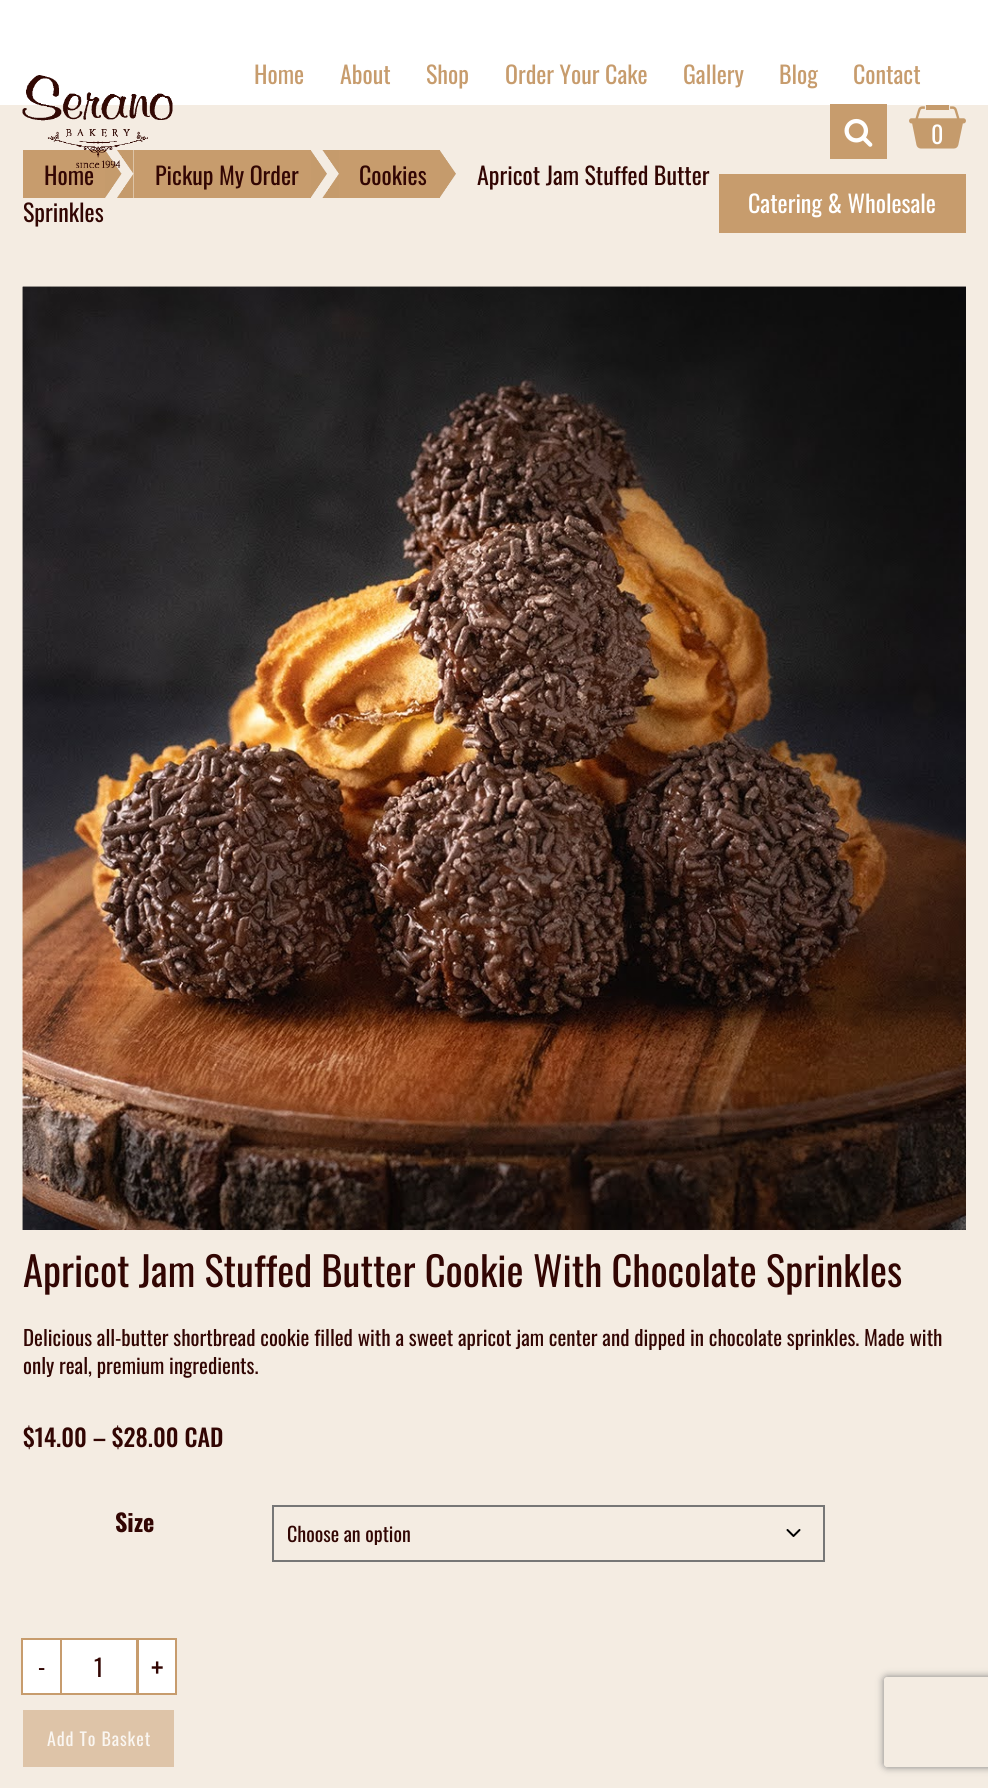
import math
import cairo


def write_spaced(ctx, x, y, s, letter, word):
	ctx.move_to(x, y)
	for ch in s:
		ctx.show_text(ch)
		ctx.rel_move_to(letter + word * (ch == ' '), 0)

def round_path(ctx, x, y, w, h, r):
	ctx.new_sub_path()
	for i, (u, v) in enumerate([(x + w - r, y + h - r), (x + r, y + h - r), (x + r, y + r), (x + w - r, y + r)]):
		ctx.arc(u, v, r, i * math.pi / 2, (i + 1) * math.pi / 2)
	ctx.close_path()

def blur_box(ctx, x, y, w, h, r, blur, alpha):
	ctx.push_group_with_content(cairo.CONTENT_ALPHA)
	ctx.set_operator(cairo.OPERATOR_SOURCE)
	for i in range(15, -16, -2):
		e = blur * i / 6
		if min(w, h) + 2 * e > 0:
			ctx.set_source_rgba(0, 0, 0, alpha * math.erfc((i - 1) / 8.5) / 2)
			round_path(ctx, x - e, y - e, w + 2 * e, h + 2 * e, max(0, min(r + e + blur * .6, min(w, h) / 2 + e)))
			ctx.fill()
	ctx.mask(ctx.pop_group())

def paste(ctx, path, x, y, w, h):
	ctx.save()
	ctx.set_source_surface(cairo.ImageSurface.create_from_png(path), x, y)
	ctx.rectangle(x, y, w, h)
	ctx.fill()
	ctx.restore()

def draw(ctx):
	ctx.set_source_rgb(1, 1, 1)
	ctx.paint()
	ctx.set_source_rgb(0.957, 0.922, 0.886)
	ctx.rectangle(0, 105, 988, 1683)
	ctx.fill()
	ctx.set_source_rgb(0.78, 0.612, 0.427)
	ctx.rectangle(23, 150, 82, 48)
	ctx.fill()
	ctx.select_font_face('Oswald')
	ctx.set_font_size(24)
	ctx.set_source_rgb(0.196, 0.027, 0.012)
	ctx.move_to(44, 185)
	ctx.show_text('Home')
	paste(ctx, 'media/4.png', 105, 151, 17, 47)
	ctx.set_source_rgb(0.78, 0.612, 0.427)
	ctx.rectangle(134, 150, 177, 48)
	ctx.fill()
	paste(ctx, 'media/5.png', 117, 150, 17, 48)
	ctx.set_source_rgb(0.196, 0.027, 0.012)
	ctx.move_to(155, 185)
	ctx.show_text('Pickup My Order')
	paste(ctx, 'media/1.png', 22, 75, 151, 93)
	ctx.set_source_rgb(0.78, 0.612, 0.427)
	for x, y, s in [
		(254, 84, 'Home'),
		(340, 84, 'About'),
		(426, 84, 'Shop'),
		(505, 84, 'Order Your Cake'),
		(683, 84, 'Gallery'),
		(779, 84, 'Blog'),
		(853, 84, 'Contact'),
	]:
		ctx.move_to(x, y)
		ctx.show_text(s)
	ctx.rectangle(830, 104, 57, 55)
	ctx.fill()
	paste(ctx, 'media/2.png', 844, 118, 29, 29)
	paste(ctx, 'media/3.png', 909, 105, 57, 44)
	ctx.set_source_rgb(1, 1, 1)
	ctx.move_to(931, 144)
	ctx.show_text('0')
	ctx.set_source_rgb(0.78, 0.612, 0.427)
	ctx.rectangle(719, 174, 247, 59)
	ctx.fill()
	ctx.set_source_rgb(1, 1, 1)
	ctx.move_to(748, 213)
	ctx.show_text('Catering & Wholesale')
	paste(ctx, 'media/6.png', 311, 150, 16, 47)
	ctx.set_source_rgb(0.78, 0.612, 0.427)
	ctx.rectangle(339, 150, 101, 48)
	ctx.fill()
	paste(ctx, 'media/7.png', 322, 150, 17, 48)
	ctx.set_source_rgb(0.196, 0.027, 0.012)
	ctx.move_to(359, 185)
	ctx.show_text('Cookies')
	paste(ctx, 'media/6.png', 440, 150, 16, 47)
	ctx.move_to(477, 185)
	ctx.show_text('Apricot Jam Stuffed Butter')
	ctx.move_to(23, 222)
	ctx.show_text('Sprinkles')
	paste(ctx, 'media/8.png', 22, 286, 944, 944)
	paste(ctx, 'media/9.png', 22, 286, 944, 944)
	ctx.set_font_size(40.5)
	ctx.move_to(23, 1287)
	ctx.show_text('Apricot Jam Stuffed Butter Cookie With Chocolate Sprinkles')
	ctx.set_font_size(21)
	ctx.move_to(23, 1346)
	ctx.show_text('Delicious all-butter shortbread cookie filled with a sweet apricot jam center and dipped in chocolate sprinkles. Made with')
	ctx.move_to(23, 1374)
	ctx.show_text('only real, premium ingredients.')
	ctx.select_font_face('Oswald Medium')
	ctx.set_font_size(24)
	ctx.move_to(23, 1447)
	ctx.show_text('$14.00 – $28.00 CAD')
	ctx.select_font_face('Oswald', cairo.FONT_SLANT_NORMAL, cairo.FONT_WEIGHT_BOLD)
	ctx.move_to(115, 1532)
	ctx.show_text('Size')
	ctx.new_path()
	ctx.move_to(787.5, 1530)
	ctx.line_to(793.5, 1536)
	ctx.line_to(799.5, 1530)
	ctx.set_source_rgb(0, 0, 0)
	ctx.set_line_cap(cairo.LINE_CAP_ROUND)
	ctx.set_line_join(cairo.LINE_JOIN_ROUND)
	ctx.stroke()
	ctx.rectangle(273, 1506, 551, 55)
	ctx.set_source_rgb(0.463, 0.463, 0.463)
	ctx.set_line_cap(cairo.LINE_CAP_BUTT)
	ctx.set_line_join(cairo.LINE_JOIN_MITER)
	ctx.stroke()
	ctx.save()
	ctx.rectangle(288, 1521, 521, 24)
	ctx.clip()
	ctx.select_font_face('Oswald')
	ctx.set_font_size(20)
	ctx.set_source_rgb(0.196, 0.027, 0.012)
	ctx.move_to(287, 1542)
	ctx.show_text('Choose an option')
	ctx.restore()
	ctx.set_source_rgb(1, 1, 1)
	ctx.rectangle(61, 1639, 76, 55)
	ctx.fill_preserve()
	ctx.set_source_rgb(0.78, 0.612, 0.427)
	ctx.stroke()
	ctx.set_source_rgb(1, 1, 1)
	ctx.rectangle(22, 1639, 39, 55)
	ctx.fill_preserve()
	ctx.set_source_rgb(0.78, 0.612, 0.427)
	ctx.stroke()
	ctx.select_font_face('Oswald')
	ctx.set_source_rgb(0.196, 0.027, 0.012)
	ctx.move_to(38, 1676)
	ctx.show_text('-')
	ctx.move_to(94, 1677)
	ctx.show_text('1')
	ctx.set_source_rgb(1, 1, 1)
	ctx.rectangle(138, 1639, 38, 55)
	ctx.fill_preserve()
	ctx.set_source_rgb(0.78, 0.612, 0.427)
	ctx.stroke()
	ctx.set_font_size(30)
	ctx.set_source_rgb(0.196, 0.027, 0.012)
	ctx.move_to(151, 1680)
	ctx.show_text('+')
	ctx.set_source_rgb(0.871, 0.769, 0.659)
	ctx.rectangle(23, 1710, 151, 57)
	ctx.fill()
	ctx.set_font_size(18)
	ctx.set_source_rgb(0.98, 0.961, 0.945)
	write_spaced(ctx, 47, 1746, 'Add To Basket', 0.9, 0)
	ctx.save()
	ctx.set_fill_rule(cairo.FILL_RULE_EVEN_ODD)
	ctx.new_path()
	ctx.move_to(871, 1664)
	ctx.line_to(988, 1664)
	ctx.line_to(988, 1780)
	ctx.line_to(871, 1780)
	ctx.close_path()
	ctx.move_to(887, 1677)
	ctx.line_to(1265, 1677)
	ctx.curve_to(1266.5, 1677, 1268, 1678.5, 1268, 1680)
	ctx.line_to(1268, 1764)
	ctx.curve_to(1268, 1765.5, 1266.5, 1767, 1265, 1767)
	ctx.line_to(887, 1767)
	ctx.curve_to(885.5, 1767, 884, 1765.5, 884, 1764)
	ctx.line_to(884, 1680)
	ctx.curve_to(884, 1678.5, 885.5, 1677, 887, 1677)
	ctx.close_path()
	ctx.clip()
	ctx.set_source_rgb(0.502, 0.502, 0.502)
	blur_box(ctx, 884, 1677, 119, 90, 3, 4, 1)
	ctx.restore()


surface = cairo.ImageSurface(cairo.FORMAT_RGB24, 988, 1788)
ctx = cairo.Context(surface)
options = cairo.FontOptions()
options.set_hint_metrics(cairo.HINT_METRICS_OFF)
options.set_hint_style(cairo.HINT_STYLE_NONE)
ctx.set_font_options(options)
ctx.set_miter_limit(4)
draw(ctx)
surface.write_to_png('image.png')
